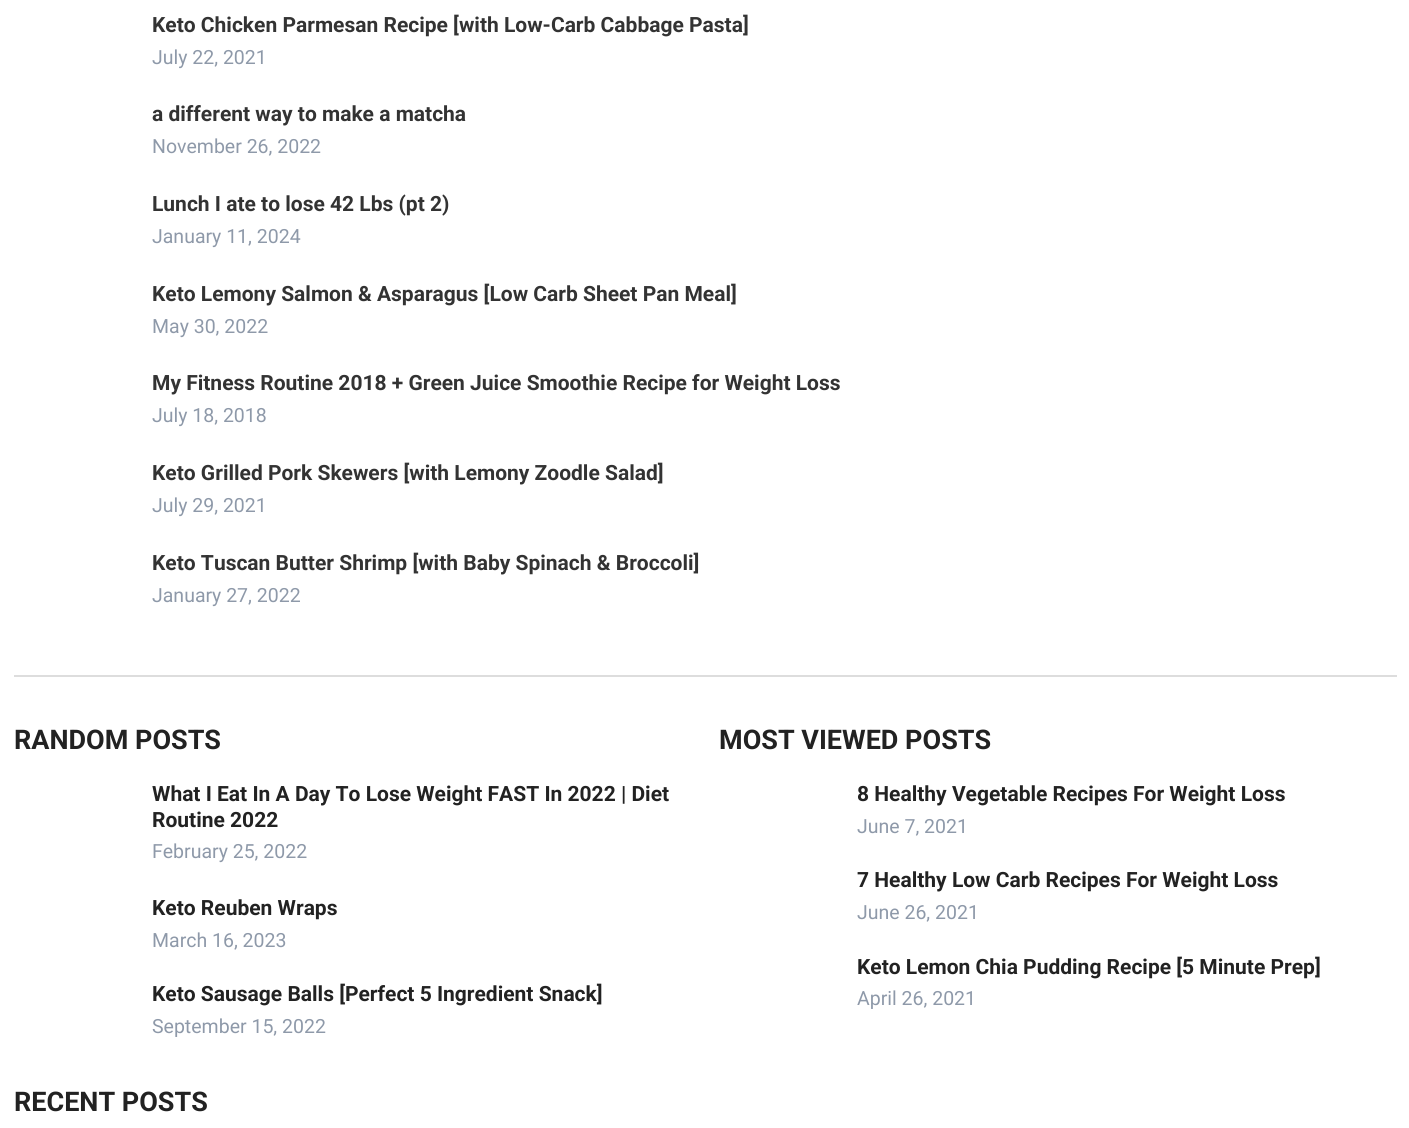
import math
import cairo


def draw(ctx):
	ctx.set_source_rgb(1, 1, 1)
	ctx.paint()
	ctx.select_font_face('Roboto', cairo.FONT_SLANT_NORMAL, cairo.FONT_WEIGHT_BOLD)
	ctx.set_font_size(21)
	ctx.set_source_rgb(0.2, 0.2, 0.2)
	ctx.move_to(152, 32)
	ctx.show_text('Keto Chicken Parmesan Recipe [with Low-Carb Cabbage Pasta]')
	ctx.select_font_face('Roboto')
	ctx.set_font_size(19.5)
	ctx.set_source_rgb(0.557, 0.6, 0.663)
	ctx.move_to(152, 64)
	ctx.show_text('July 22, 2021')
	ctx.select_font_face('Roboto', cairo.FONT_SLANT_NORMAL, cairo.FONT_WEIGHT_BOLD)
	ctx.set_font_size(21)
	ctx.set_source_rgb(0.2, 0.2, 0.2)
	ctx.move_to(152, 121)
	ctx.show_text('a different way to make a matcha')
	ctx.select_font_face('Roboto')
	ctx.set_font_size(19.5)
	ctx.set_source_rgb(0.557, 0.6, 0.663)
	ctx.move_to(152, 153)
	ctx.show_text('November 26, 2022')
	ctx.select_font_face('Roboto', cairo.FONT_SLANT_NORMAL, cairo.FONT_WEIGHT_BOLD)
	ctx.set_font_size(21)
	ctx.set_source_rgb(0.2, 0.2, 0.2)
	ctx.move_to(152, 211)
	ctx.show_text('Lunch I ate to lose 42 Lbs (pt 2)')
	ctx.select_font_face('Roboto')
	ctx.set_font_size(19.5)
	ctx.set_source_rgb(0.557, 0.6, 0.663)
	ctx.move_to(152, 243)
	ctx.show_text('January 11, 2024')
	ctx.select_font_face('Roboto', cairo.FONT_SLANT_NORMAL, cairo.FONT_WEIGHT_BOLD)
	ctx.set_font_size(21)
	ctx.set_source_rgb(0.2, 0.2, 0.2)
	ctx.move_to(152, 301)
	ctx.show_text('Keto Lemony Salmon & Asparagus [Low Carb Sheet Pan Meal]')
	ctx.select_font_face('Roboto')
	ctx.set_font_size(19.5)
	ctx.set_source_rgb(0.557, 0.6, 0.663)
	ctx.move_to(152, 333)
	ctx.show_text('May 30, 2022')
	ctx.select_font_face('Roboto', cairo.FONT_SLANT_NORMAL, cairo.FONT_WEIGHT_BOLD)
	ctx.set_font_size(21)
	ctx.set_source_rgb(0.2, 0.2, 0.2)
	ctx.move_to(152, 390)
	ctx.show_text('My Fitness Routine 2018 + Green Juice Smoothie Recipe for Weight Loss')
	ctx.select_font_face('Roboto')
	ctx.set_font_size(19.5)
	ctx.set_source_rgb(0.557, 0.6, 0.663)
	ctx.move_to(152, 422)
	ctx.show_text('July 18, 2018')
	ctx.select_font_face('Roboto', cairo.FONT_SLANT_NORMAL, cairo.FONT_WEIGHT_BOLD)
	ctx.set_font_size(21)
	ctx.set_source_rgb(0.2, 0.2, 0.2)
	ctx.move_to(152, 480)
	ctx.show_text('Keto Grilled Pork Skewers [with Lemony Zoodle Salad]')
	ctx.select_font_face('Roboto')
	ctx.set_font_size(19.5)
	ctx.set_source_rgb(0.557, 0.6, 0.663)
	ctx.move_to(152, 512)
	ctx.show_text('July 29, 2021')
	ctx.select_font_face('Roboto', cairo.FONT_SLANT_NORMAL, cairo.FONT_WEIGHT_BOLD)
	ctx.set_font_size(21)
	ctx.set_source_rgb(0.2, 0.2, 0.2)
	ctx.move_to(152, 570)
	ctx.show_text('Keto Tuscan Butter Shrimp [with Baby Spinach & Broccoli]')
	ctx.select_font_face('Roboto')
	ctx.set_font_size(19.5)
	ctx.set_source_rgb(0.557, 0.6, 0.663)
	ctx.move_to(152, 602)
	ctx.show_text('January 27, 2022')
	ctx.set_source_rgb(0.867, 0.867, 0.867)
	ctx.rectangle(14, 675, 1383, 2)
	ctx.fill()
	ctx.select_font_face('Roboto', cairo.FONT_SLANT_NORMAL, cairo.FONT_WEIGHT_BOLD)
	ctx.set_font_size(27)
	ctx.set_source_rgb(0.133, 0.133, 0.133)
	ctx.move_to(14, 749)
	ctx.show_text('RANDOM POSTS')
	ctx.set_font_size(21)
	ctx.move_to(152, 801)
	ctx.show_text('What I Eat In A Day To Lose Weight FAST In 2022 | Diet')
	ctx.move_to(152, 827)
	ctx.show_text('Routine 2022')
	ctx.select_font_face('Roboto')
	ctx.set_font_size(19.5)
	ctx.set_source_rgb(0.557, 0.6, 0.663)
	ctx.move_to(152, 858)
	ctx.show_text('February 25, 2022')
	ctx.select_font_face('Roboto', cairo.FONT_SLANT_NORMAL, cairo.FONT_WEIGHT_BOLD)
	ctx.set_font_size(21)
	ctx.set_source_rgb(0.133, 0.133, 0.133)
	ctx.move_to(152, 915)
	ctx.show_text('Keto Reuben Wraps')
	ctx.select_font_face('Roboto')
	ctx.set_font_size(19.5)
	ctx.set_source_rgb(0.557, 0.6, 0.663)
	ctx.move_to(152, 947)
	ctx.show_text('March 16, 2023')
	ctx.select_font_face('Roboto', cairo.FONT_SLANT_NORMAL, cairo.FONT_WEIGHT_BOLD)
	ctx.set_font_size(21)
	ctx.set_source_rgb(0.133, 0.133, 0.133)
	ctx.move_to(152, 1001)
	ctx.show_text('Keto Sausage Balls [Perfect 5 Ingredient Snack]')
	ctx.select_font_face('Roboto')
	ctx.set_font_size(19.5)
	ctx.set_source_rgb(0.557, 0.6, 0.663)
	ctx.move_to(152, 1033)
	ctx.show_text('September 15, 2022')
	ctx.select_font_face('Roboto', cairo.FONT_SLANT_NORMAL, cairo.FONT_WEIGHT_BOLD)
	ctx.set_font_size(27)
	ctx.set_source_rgb(0.133, 0.133, 0.133)
	ctx.move_to(719, 749)
	ctx.show_text('MOST VIEWED POSTS')
	ctx.set_font_size(21)
	ctx.move_to(857, 801)
	ctx.show_text('8 Healthy Vegetable Recipes For Weight Loss')
	ctx.select_font_face('Roboto')
	ctx.set_font_size(19.5)
	ctx.set_source_rgb(0.557, 0.6, 0.663)
	ctx.move_to(857, 833)
	ctx.show_text('June 7, 2021')
	ctx.select_font_face('Roboto', cairo.FONT_SLANT_NORMAL, cairo.FONT_WEIGHT_BOLD)
	ctx.set_font_size(21)
	ctx.set_source_rgb(0.133, 0.133, 0.133)
	ctx.move_to(857, 887)
	ctx.show_text('7 Healthy Low Carb Recipes For Weight Loss')
	ctx.select_font_face('Roboto')
	ctx.set_font_size(19.5)
	ctx.set_source_rgb(0.557, 0.6, 0.663)
	ctx.move_to(857, 919)
	ctx.show_text('June 26, 2021')
	ctx.select_font_face('Roboto', cairo.FONT_SLANT_NORMAL, cairo.FONT_WEIGHT_BOLD)
	ctx.set_font_size(21)
	ctx.set_source_rgb(0.133, 0.133, 0.133)
	ctx.move_to(857, 974)
	ctx.show_text('Keto Lemon Chia Pudding Recipe [5 Minute Prep]')
	ctx.select_font_face('Roboto')
	ctx.set_font_size(19.5)
	ctx.set_source_rgb(0.557, 0.6, 0.663)
	ctx.move_to(857, 1005)
	ctx.show_text('April 26, 2021')
	ctx.select_font_face('Roboto', cairo.FONT_SLANT_NORMAL, cairo.FONT_WEIGHT_BOLD)
	ctx.set_font_size(27)
	ctx.set_source_rgb(0.133, 0.133, 0.133)
	ctx.move_to(14, 1111)
	ctx.show_text('RECENT POSTS')


surface = cairo.ImageSurface(cairo.FORMAT_RGB24, 1409, 1128)
ctx = cairo.Context(surface)
options = cairo.FontOptions()
options.set_hint_metrics(cairo.HINT_METRICS_OFF)
options.set_hint_style(cairo.HINT_STYLE_NONE)
ctx.set_font_options(options)
ctx.set_miter_limit(4)
draw(ctx)
surface.write_to_png('image.png')
